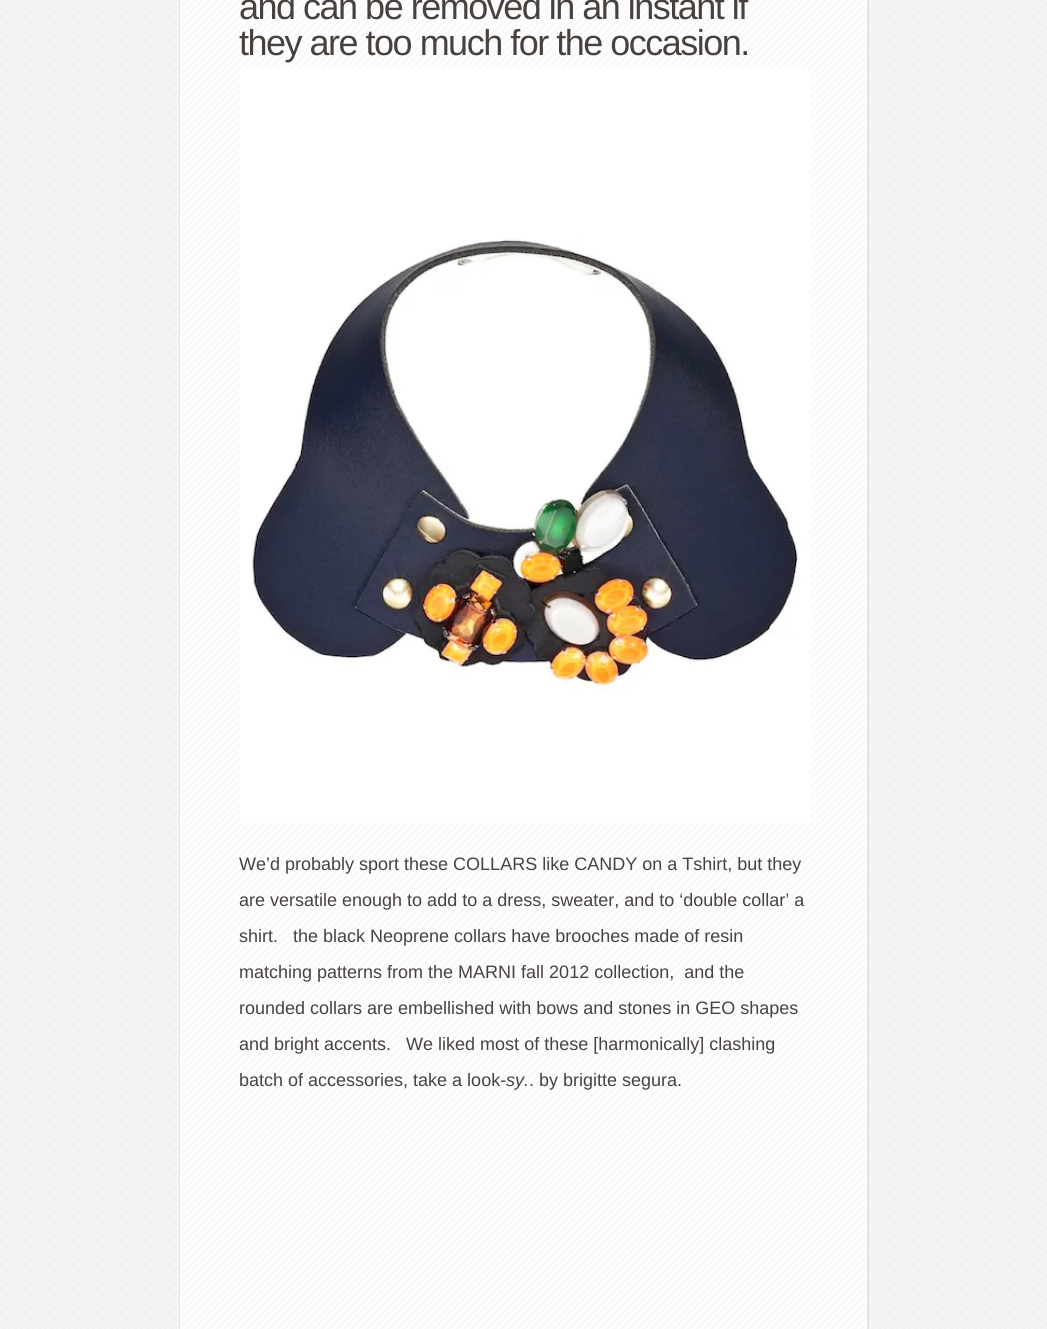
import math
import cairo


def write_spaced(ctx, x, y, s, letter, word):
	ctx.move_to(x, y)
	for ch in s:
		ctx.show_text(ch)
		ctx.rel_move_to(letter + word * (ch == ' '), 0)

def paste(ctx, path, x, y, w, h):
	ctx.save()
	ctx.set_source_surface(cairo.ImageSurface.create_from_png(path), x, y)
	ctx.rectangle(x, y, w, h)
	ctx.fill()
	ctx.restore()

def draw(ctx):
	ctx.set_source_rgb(0.98, 0.988, 0.988)
	ctx.paint()
	paste(ctx, 'media/1.png', 0, 0, 1047, 1329)
	ctx.rectangle(180, -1, 688, 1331)
	ctx.set_source_rgb(0.886, 0.898, 0.898)
	ctx.stroke()
	paste(ctx, 'media/2.png', 182, 0, 683, 1329)
	ctx.rectangle(181, -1, 685, 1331)
	ctx.set_source_rgb(1, 1, 1)
	ctx.stroke()
	ctx.select_font_face('Liberation Sans')
	ctx.set_font_size(36)
	ctx.set_source_rgb(0.282, 0.259, 0.247)
	write_spaced(ctx, 239, 19, 'and can be removed in an instant if', -1.5, 0)
	write_spaced(ctx, 239, 55, 'they are too much for the occasion.', -1.5, 0)
	paste(ctx, 'media/3.png', 239, 69, 571, 754)
	ctx.set_font_size(18)
	for x, y, s in [
		(239, 870, 'We’d probably sport these COLLARS like CANDY on a Tshirt, but they'),
		(239, 906, 'are versatile enough to add to a dress, sweater, and to ‘double collar’ a'),
		(239, 942, 'shirt.   the black Neoprene collars have brooches made of resin'),
		(239, 978, 'matching patterns from the MARNI fall 2012 collection,  and the'),
		(239, 1014, 'rounded collars are embellished with bows and stones in GEO shapes'),
		(239, 1050, 'and bright accents.   We liked most of these [harmonically] clashing'),
		(239, 1086, 'batch of accessories, take a look-'),
	]:
		ctx.move_to(x, y)
		ctx.show_text(s)
	ctx.select_font_face('Liberation Sans', cairo.FONT_SLANT_ITALIC)
	ctx.move_to(506, 1086)
	ctx.show_text('sy.')
	ctx.select_font_face('Liberation Sans')
	ctx.move_to(529, 1086)
	ctx.show_text('. by brigitte segura.')


surface = cairo.ImageSurface(cairo.FORMAT_RGB24, 1047, 1329)
ctx = cairo.Context(surface)
options = cairo.FontOptions()
options.set_hint_metrics(cairo.HINT_METRICS_OFF)
options.set_hint_style(cairo.HINT_STYLE_NONE)
ctx.set_font_options(options)
ctx.set_miter_limit(4)
draw(ctx)
surface.write_to_png('image.png')
